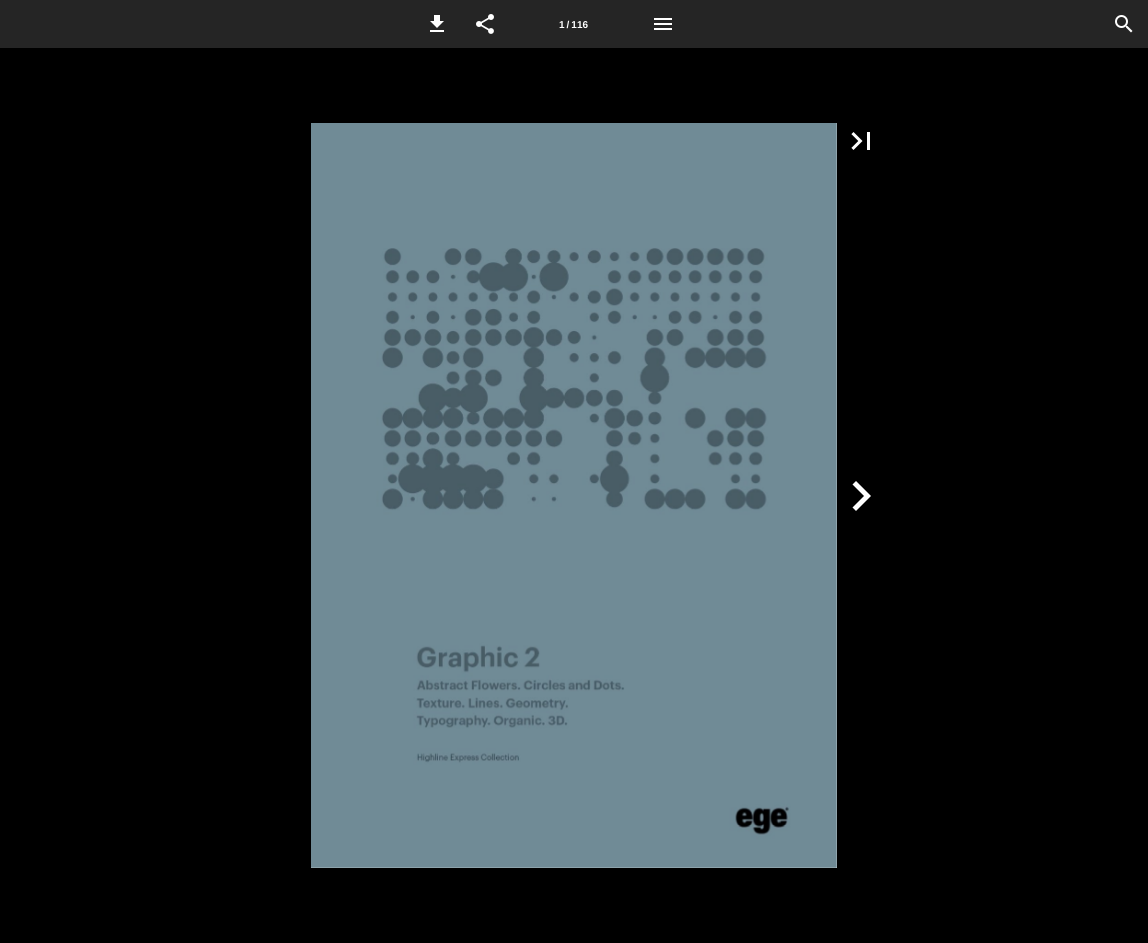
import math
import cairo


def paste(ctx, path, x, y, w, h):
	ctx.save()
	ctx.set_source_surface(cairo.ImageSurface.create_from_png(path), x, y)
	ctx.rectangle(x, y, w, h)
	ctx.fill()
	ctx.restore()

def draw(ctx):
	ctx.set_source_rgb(0.145, 0.145, 0.145)
	ctx.paint()
	paste(ctx, 'media/1.png', 430, 15, 14, 17)
	paste(ctx, 'media/2.png', 476, 14, 18, 20)
	ctx.select_font_face('Liberation Sans', cairo.FONT_SLANT_NORMAL, cairo.FONT_WEIGHT_BOLD)
	ctx.set_font_size(10)
	ctx.set_source_rgb(1, 1, 1)
	ctx.move_to(559, 28)
	ctx.show_text('1 / 116')
	paste(ctx, 'media/3.png', 654, 18, 18, 12)
	paste(ctx, 'media/4.png', 1115, 15, 18, 18)
	ctx.set_source_rgb(0, 0, 0)
	ctx.rectangle(0, 48, 1148, 895)
	ctx.fill()
	ctx.set_source_rgb(1, 1, 1)
	ctx.rectangle(311, 123, 526, 745)
	ctx.fill()
	paste(ctx, 'media/5.png', 311, 123, 526, 745)
	paste(ctx, 'media/6.png', 851, 132, 19, 18)
	ctx.new_path()
	ctx.move_to(856, 481)
	ctx.line_to(852.5, 484.5)
	ctx.line_to(864, 496)
	ctx.line_to(852.5, 507.5)
	ctx.line_to(856, 511)
	ctx.line_to(871, 496)
	ctx.close_path()
	ctx.fill()


surface = cairo.ImageSurface(cairo.FORMAT_RGB24, 1148, 943)
ctx = cairo.Context(surface)
options = cairo.FontOptions()
options.set_hint_metrics(cairo.HINT_METRICS_OFF)
options.set_hint_style(cairo.HINT_STYLE_NONE)
ctx.set_font_options(options)
ctx.set_miter_limit(4)
draw(ctx)
surface.write_to_png('image.png')
